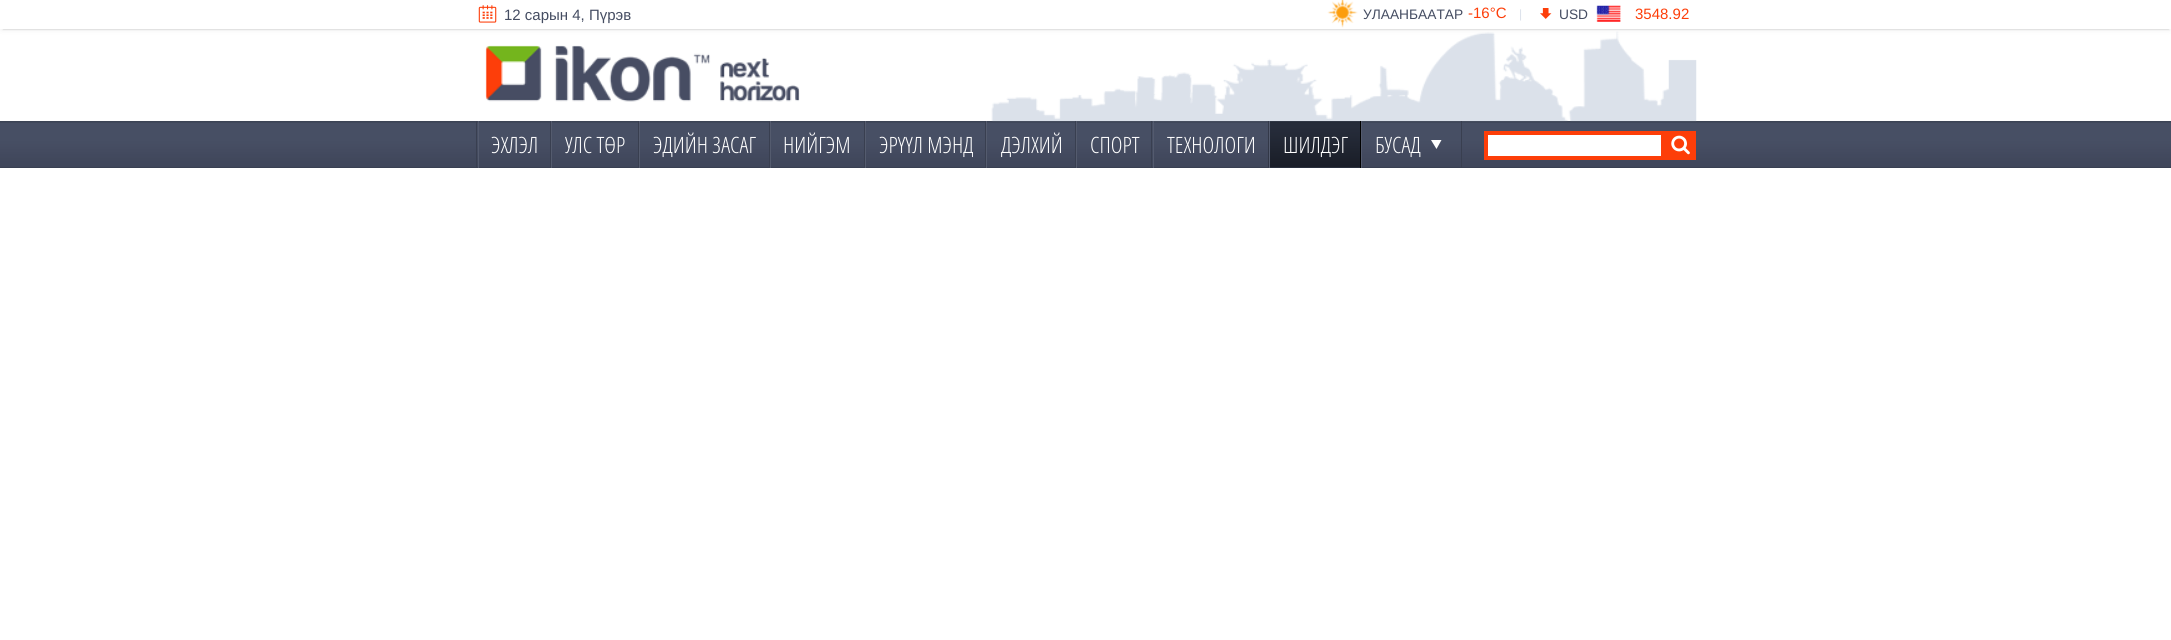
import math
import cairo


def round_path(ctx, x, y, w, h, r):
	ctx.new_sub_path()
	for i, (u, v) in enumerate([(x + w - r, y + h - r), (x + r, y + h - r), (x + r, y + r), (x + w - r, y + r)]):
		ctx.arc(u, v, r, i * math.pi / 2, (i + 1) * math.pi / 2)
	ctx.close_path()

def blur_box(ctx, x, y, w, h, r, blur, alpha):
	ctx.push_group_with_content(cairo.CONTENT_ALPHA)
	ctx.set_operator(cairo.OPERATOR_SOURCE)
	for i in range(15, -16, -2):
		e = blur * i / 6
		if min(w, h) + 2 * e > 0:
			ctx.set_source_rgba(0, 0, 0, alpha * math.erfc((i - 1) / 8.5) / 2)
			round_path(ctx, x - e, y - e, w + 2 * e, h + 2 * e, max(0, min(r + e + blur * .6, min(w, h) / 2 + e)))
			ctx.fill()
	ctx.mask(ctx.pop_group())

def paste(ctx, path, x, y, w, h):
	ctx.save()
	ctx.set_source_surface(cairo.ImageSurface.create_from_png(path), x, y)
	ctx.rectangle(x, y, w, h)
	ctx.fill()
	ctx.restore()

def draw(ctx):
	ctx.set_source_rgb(1, 1, 1)
	ctx.paint()
	ctx.set_source_rgb(0.271, 0.302, 0.384)
	ctx.rectangle(0, 121, 2171, 47)
	ctx.fill()
	paste(ctx, 'media/7.png', 0, 121, 2171, 47)
	paste(ctx, 'media/5.png', 991, 31, 706, 91)
	ctx.set_source_rgb(0, 0, 0)
	blur_box(ctx, 0, 0, 2171, 30, 0, 3, 0.06)
	blur_box(ctx, 3, 5, 2166, 25, 0, 0.5, 0.1)
	ctx.set_source_rgb(1, 1, 1)
	ctx.rectangle(0, 0, 2171, 29)
	ctx.fill()
	paste(ctx, 'media/1.png', 478, 5, 19, 18)
	ctx.select_font_face('Liberation Sans')
	ctx.set_font_size(15)
	ctx.set_source_rgb(0.271, 0.302, 0.384)
	ctx.move_to(504, 20)
	ctx.show_text('12 сарын 4, Пүрэв')
	paste(ctx, 'media/2.png', 1327, 0, 31, 28)
	ctx.set_font_size(13.75)
	ctx.move_to(1363, 19)
	ctx.show_text('УЛААНБААТАР')
	ctx.set_font_size(15)
	ctx.set_source_rgb(0.992, 0.243, 0.039)
	ctx.move_to(1468, 18)
	ctx.show_text('-16°C')
	ctx.set_font_size(12)
	ctx.set_source_rgb(0.859, 0.882, 0.918)
	ctx.move_to(1519, 18)
	ctx.show_text('|')
	paste(ctx, 'media/3.png', 1540, 8, 12, 11)
	ctx.set_font_size(13.75)
	ctx.set_source_rgb(0.271, 0.302, 0.384)
	ctx.move_to(1559, 19)
	ctx.show_text('USD')
	paste(ctx, 'media/4.png', 1596, 5, 25, 17)
	ctx.set_font_size(15)
	ctx.set_source_rgb(0.992, 0.243, 0.039)
	ctx.move_to(1635, 19)
	ctx.show_text('3548.92')
	paste(ctx, 'media/6.png', 485, 45, 315, 57)
	ctx.set_source_rgb(0.224, 0.247, 0.314)
	ctx.rectangle(476, 121, 1, 47)
	ctx.rectangle(550, 121, 1, 47)
	ctx.fill()
	ctx.set_source_rgb(0.329, 0.357, 0.431)
	ctx.rectangle(478, 121, 1, 47)
	ctx.fill()
	ctx.select_font_face('Open Sans Light')
	ctx.set_font_size(22.5)
	ctx.set_source_rgb(1, 1, 1)
	ctx.move_to(491, 153)
	ctx.show_text('ЭХЛЭЛ')
	ctx.set_source_rgb(0.224, 0.247, 0.314)
	ctx.rectangle(638, 121, 1, 47)
	ctx.fill()
	ctx.set_source_rgb(0.329, 0.357, 0.431)
	ctx.rectangle(551, 121, 1, 47)
	ctx.fill()
	ctx.set_source_rgb(1, 1, 1)
	ctx.move_to(565, 153)
	ctx.show_text('УЛС ТӨР')
	ctx.set_source_rgb(0.224, 0.247, 0.314)
	ctx.rectangle(769, 121, 1, 47)
	ctx.fill()
	ctx.set_source_rgb(0.329, 0.357, 0.431)
	ctx.rectangle(639, 121, 1, 47)
	ctx.fill()
	ctx.set_source_rgb(1, 1, 1)
	ctx.move_to(653, 153)
	ctx.show_text('ЭДИЙН ЗАСАГ')
	ctx.set_source_rgb(0.224, 0.247, 0.314)
	ctx.rectangle(864, 121, 1, 47)
	ctx.fill()
	ctx.set_source_rgb(0.329, 0.357, 0.431)
	ctx.rectangle(770, 121, 1, 47)
	ctx.fill()
	ctx.set_source_rgb(1, 1, 1)
	ctx.move_to(783, 153)
	ctx.show_text('НИЙГЭМ')
	ctx.set_source_rgb(0.224, 0.247, 0.314)
	ctx.rectangle(985, 121, 1, 47)
	ctx.fill()
	ctx.set_source_rgb(0.329, 0.357, 0.431)
	ctx.rectangle(865, 121, 1, 47)
	ctx.fill()
	ctx.set_source_rgb(1, 1, 1)
	ctx.move_to(879, 153)
	ctx.show_text('ЭРҮҮЛ МЭНД')
	ctx.set_source_rgb(0.224, 0.247, 0.314)
	ctx.rectangle(1075, 121, 1, 47)
	ctx.fill()
	ctx.set_source_rgb(0.329, 0.357, 0.431)
	ctx.rectangle(986, 121, 1, 47)
	ctx.fill()
	ctx.set_source_rgb(1, 1, 1)
	ctx.move_to(1001, 153)
	ctx.show_text('ДЭЛХИЙ')
	ctx.set_source_rgb(0.224, 0.247, 0.314)
	ctx.rectangle(1151, 121, 1, 47)
	ctx.fill()
	ctx.set_source_rgb(0.329, 0.357, 0.431)
	ctx.rectangle(1076, 121, 1, 47)
	ctx.fill()
	ctx.set_source_rgb(1, 1, 1)
	ctx.move_to(1090, 153)
	ctx.show_text('СПОРТ')
	ctx.set_source_rgb(0.224, 0.247, 0.314)
	ctx.rectangle(1268, 121, 1, 47)
	ctx.fill()
	ctx.set_source_rgb(0.329, 0.357, 0.431)
	ctx.rectangle(1153, 121, 1, 47)
	ctx.fill()
	ctx.set_source_rgb(1, 1, 1)
	ctx.move_to(1167, 153)
	ctx.show_text('ТЕХНОЛОГИ')
	paste(ctx, 'media/8.png', 1268, 121, 92, 47)
	ctx.set_source_rgb(0, 0, 0)
	ctx.rectangle(1360, 121, 1, 47)
	ctx.fill()
	ctx.set_source_rgb(0.329, 0.357, 0.431)
	ctx.rectangle(1269, 121, 1, 47)
	ctx.fill()
	ctx.set_source_rgb(1, 1, 1)
	ctx.move_to(1283, 153)
	ctx.show_text('ШИЛДЭГ')
	ctx.set_source_rgb(0.224, 0.247, 0.314)
	ctx.rectangle(1461, 121, 1, 47)
	ctx.fill()
	ctx.set_source_rgb(0.329, 0.357, 0.431)
	ctx.rectangle(1361, 121, 1, 47)
	ctx.fill()
	ctx.set_source_rgb(1, 1, 1)
	ctx.move_to(1375, 153)
	ctx.show_text('БУСАД')
	ctx.new_path()
	ctx.move_to(1441.5, 140)
	ctx.line_to(1436.5, 149)
	ctx.line_to(1431, 140)
	ctx.close_path()
	ctx.fill()
	ctx.set_source_rgb(0.992, 0.243, 0.039)
	ctx.rectangle(1484, 131, 212, 29)
	ctx.fill()
	ctx.set_source_rgb(1, 1, 1)
	ctx.rectangle(1488, 135, 173, 21)
	ctx.fill()
	paste(ctx, 'media/9.png', 1671, 135, 19, 20)


surface = cairo.ImageSurface(cairo.FORMAT_RGB24, 2171, 640)
ctx = cairo.Context(surface)
options = cairo.FontOptions()
options.set_hint_metrics(cairo.HINT_METRICS_OFF)
options.set_hint_style(cairo.HINT_STYLE_NONE)
ctx.set_font_options(options)
ctx.set_miter_limit(4)
draw(ctx)
surface.write_to_png('image.png')
